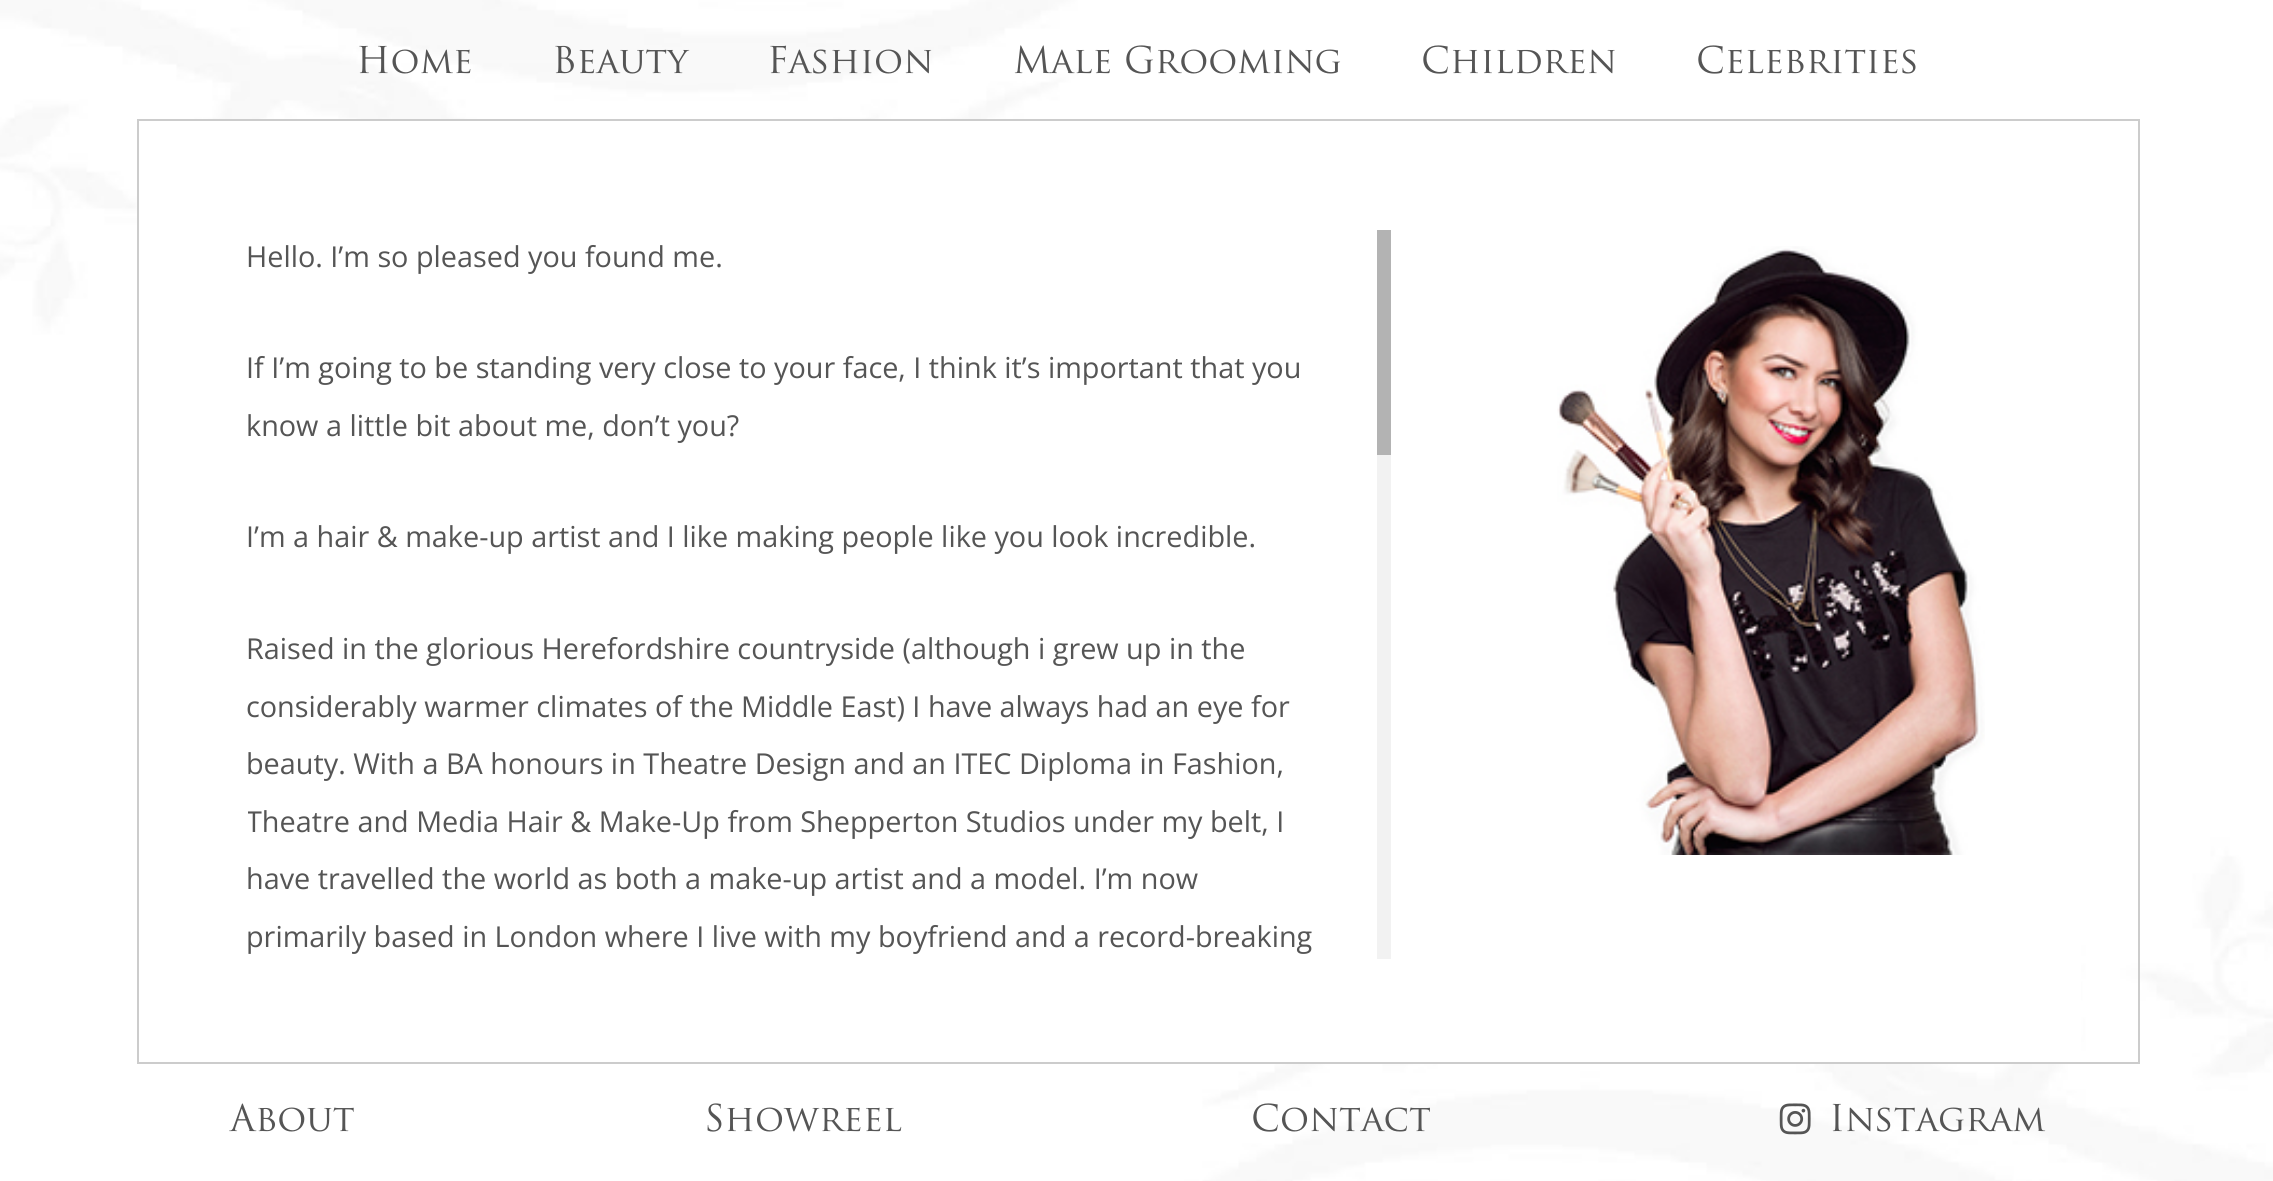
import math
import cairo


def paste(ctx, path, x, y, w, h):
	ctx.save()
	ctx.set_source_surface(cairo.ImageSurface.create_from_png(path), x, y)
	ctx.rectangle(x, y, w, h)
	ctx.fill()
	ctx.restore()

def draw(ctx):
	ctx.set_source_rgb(1, 1, 1)
	ctx.paint()
	paste(ctx, 'media/1.png', 0, 0, 2273, 1181)
	ctx.select_font_face('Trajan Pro')
	ctx.set_font_size(36)
	ctx.set_source_rgb(0.333, 0.333, 0.333)
	for x, y, s in [
		(356, 73, 'Home'),
		(552, 73, 'Beauty'),
		(767, 73, 'Fashion'),
		(1013, 73, 'Male Grooming'),
		(1421, 73, 'Children'),
		(1696, 73, 'Celebrities'),
	]:
		ctx.move_to(x, y)
		ctx.show_text(s)
	ctx.set_source_rgb(1, 1, 1)
	ctx.rectangle(139, 121, 1942, 941)
	ctx.fill()
	ctx.rectangle(138, 120, 2001, 943)
	ctx.set_source_rgb(0.8, 0.8, 0.8)
	ctx.stroke()
	ctx.select_font_face('Open Sans')
	ctx.set_font_size(28.8)
	ctx.set_source_rgb(0.333, 0.333, 0.333)
	for x, y, s in [
		(246, 267, 'Hello. I’m so pleased you found me.'),
		(246, 378, 'If I’m going to be standing very close to your face, I think it’s important that you'),
		(246, 436, 'know a little bit about me, don’t you?'),
		(246, 547, 'I’m a hair & make-up artist and I like making people like you look incredible.'),
		(246, 659, 'Raised in the glorious Herefordshire countryside (although i grew up in the'),
		(246, 717, 'considerably warmer climates of the Middle East) I have always had an eye for'),
		(246, 774, 'beauty. With a BA honours in Theatre Design and an ITEC Diploma in Fashion,'),
	]:
		ctx.move_to(x, y)
		ctx.show_text(s)
	ctx.save()
	ctx.rectangle(248, 230, 1075, 729)
	ctx.clip()
	ctx.move_to(246, 832)
	ctx.show_text('Theatre and Media Hair & Make-Up from Shepperton Studios under my belt, I')
	ctx.restore()
	ctx.move_to(246, 889)
	ctx.show_text('have travelled the world as both a make-up artist and a model. I’m now')
	ctx.move_to(246, 947)
	ctx.show_text('primarily based in London where I live with my boyfriend and a record-breaking')
	ctx.set_source_rgb(0.949, 0.949, 0.949)
	ctx.rectangle(1377, 455, 14, 504)
	ctx.fill()
	ctx.set_source_rgb(0.702, 0.702, 0.702)
	ctx.rectangle(1377, 230, 14, 225)
	ctx.fill()
	paste(ctx, 'media/2.png', 1557, 246, 428, 609)
	ctx.select_font_face('Trajan Pro')
	ctx.set_font_size(36)
	ctx.set_source_rgb(0.333, 0.333, 0.333)
	for x, y, s in [
		(230, 1131, 'About'),
		(704, 1131, 'Showreel'),
		(1251, 1131, 'Contact'),
	]:
		ctx.move_to(x, y)
		ctx.show_text(s)
	paste(ctx, 'media/3.png', 1779, 1103, 32, 32)
	ctx.move_to(1829, 1131)
	ctx.show_text('Instagram')


surface = cairo.ImageSurface(cairo.FORMAT_RGB24, 2273, 1181)
ctx = cairo.Context(surface)
options = cairo.FontOptions()
options.set_hint_metrics(cairo.HINT_METRICS_OFF)
options.set_hint_style(cairo.HINT_STYLE_NONE)
ctx.set_font_options(options)
ctx.set_miter_limit(4)
draw(ctx)
surface.write_to_png('image.png')
